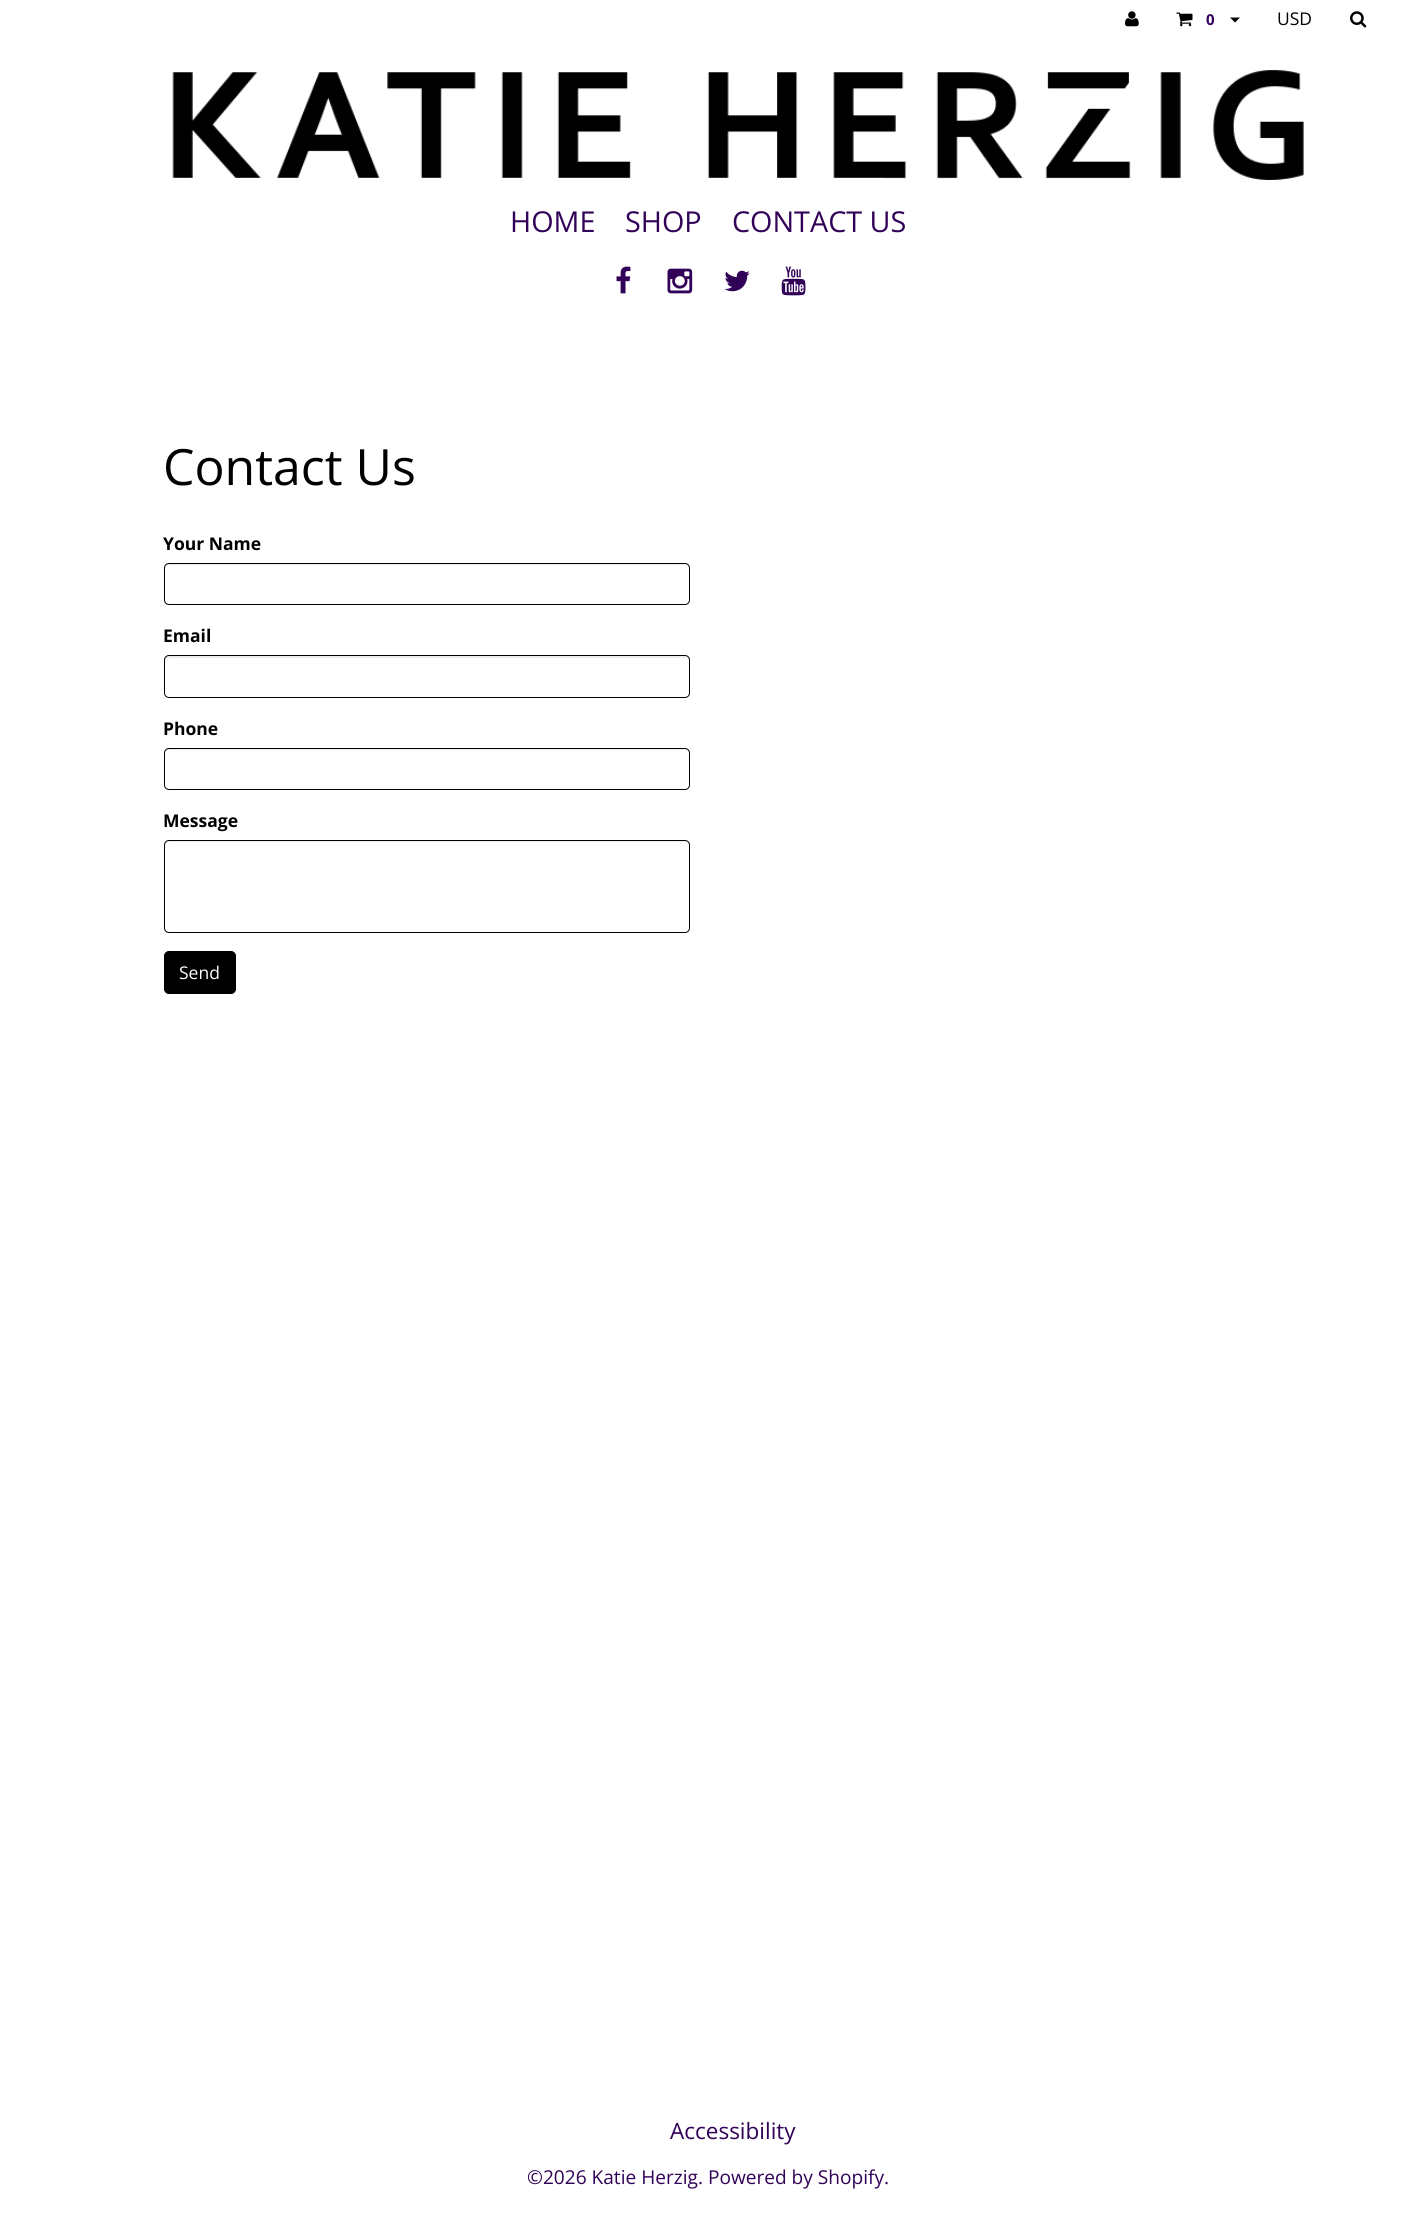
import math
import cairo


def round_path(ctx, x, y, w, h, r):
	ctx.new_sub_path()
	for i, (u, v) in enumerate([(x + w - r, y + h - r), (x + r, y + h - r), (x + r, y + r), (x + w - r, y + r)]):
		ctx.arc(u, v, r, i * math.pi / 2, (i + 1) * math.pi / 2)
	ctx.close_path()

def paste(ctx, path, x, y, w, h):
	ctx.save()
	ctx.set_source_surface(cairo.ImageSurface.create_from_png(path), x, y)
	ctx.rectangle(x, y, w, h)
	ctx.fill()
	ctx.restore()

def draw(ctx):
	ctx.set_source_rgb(1, 1, 1)
	ctx.paint()
	paste(ctx, 'media/1.png', 1125, 11, 14, 16)
	paste(ctx, 'media/2.png', 1176, 12, 17, 15)
	ctx.select_font_face('Open Sans', cairo.FONT_SLANT_NORMAL, cairo.FONT_WEIGHT_BOLD)
	ctx.set_font_size(15)
	ctx.set_source_rgb(0.192, 0.008, 0.345)
	ctx.move_to(1206, 25)
	ctx.show_text('0')
	ctx.set_source_rgb(0, 0, 0)
	ctx.new_path()
	ctx.move_to(1230, 17.5)
	ctx.line_to(1240, 17.5)
	ctx.line_to(1235, 22.5)
	ctx.close_path()
	ctx.fill()
	ctx.select_font_face('Open Sans')
	ctx.set_font_size(17.5)
	ctx.move_to(1277, 25)
	ctx.show_text('USD')
	paste(ctx, 'media/3.png', 1350, 11, 17, 17)
	paste(ctx, 'media/4.png', 172, 70, 1132, 110)
	ctx.set_font_size(28.75)
	ctx.set_source_rgb(0.192, 0.008, 0.345)
	for x, y, s in [
		(510, 232, 'HOME'),
		(625, 232, 'SHOP'),
		(732, 232, 'CONTACT US'),
	]:
		ctx.move_to(x, y)
		ctx.show_text(s)
	paste(ctx, 'media/5.png', 616, 266, 15, 28)
	paste(ctx, 'media/6.png', 667, 268, 26, 26)
	paste(ctx, 'media/7.png', 724, 270, 26, 22)
	paste(ctx, 'media/8.png', 781, 266, 25, 30)
	ctx.set_font_size(50)
	ctx.set_source_rgb(0, 0, 0)
	ctx.move_to(163, 485)
	ctx.show_text('Contact Us')
	ctx.select_font_face('Open Sans', cairo.FONT_SLANT_NORMAL, cairo.FONT_WEIGHT_BOLD)
	ctx.set_font_size(17.5)
	ctx.move_to(163, 550)
	ctx.show_text('Your Name')
	ctx.set_source_rgb(0.925, 0.925, 0.925)
	ctx.new_path()
	ctx.move_to(169, 565)
	ctx.line_to(685, 565)
	ctx.curve_to(687, 565, 689, 567, 689, 569)
	ctx.line_to(689, 568)
	ctx.curve_to(689, 566, 687, 564, 685, 564)
	ctx.line_to(169, 564)
	ctx.curve_to(167, 564, 165, 566, 165, 568)
	ctx.line_to(165, 569)
	ctx.curve_to(165, 567, 167, 565, 169, 565)
	ctx.close_path()
	ctx.fill()
	round_path(ctx, 164.5, 563.5, 525, 41, 4.5)
	ctx.set_source_rgb(0, 0, 0)
	ctx.set_line_width(1)
	ctx.stroke()
	ctx.move_to(163, 642)
	ctx.show_text('Email')
	ctx.set_source_rgb(0.925, 0.925, 0.925)
	ctx.new_path()
	ctx.move_to(169, 658)
	ctx.line_to(685, 658)
	ctx.curve_to(687, 658, 689, 659, 689, 661)
	ctx.line_to(689, 660)
	ctx.curve_to(689, 658, 687, 656, 685, 656)
	ctx.line_to(169, 656)
	ctx.curve_to(167, 656, 165, 658, 165, 660)
	ctx.line_to(165, 661)
	ctx.curve_to(165, 659, 167, 658, 169, 658)
	ctx.close_path()
	ctx.fill()
	round_path(ctx, 164.5, 655.5, 525, 42, 4.5)
	ctx.set_source_rgb(0, 0, 0)
	ctx.stroke()
	ctx.move_to(163, 735)
	ctx.show_text('Phone')
	ctx.set_source_rgb(0.925, 0.925, 0.925)
	ctx.new_path()
	ctx.move_to(169, 750)
	ctx.line_to(685, 750)
	ctx.curve_to(687, 750, 689, 752, 689, 754)
	ctx.line_to(689, 753)
	ctx.curve_to(689, 751, 687, 749, 685, 749)
	ctx.line_to(169, 749)
	ctx.curve_to(167, 749, 165, 751, 165, 753)
	ctx.line_to(165, 754)
	ctx.curve_to(165, 752, 167, 750, 169, 750)
	ctx.close_path()
	ctx.fill()
	round_path(ctx, 164.5, 748.5, 525, 41, 4.5)
	ctx.set_source_rgb(0, 0, 0)
	ctx.stroke()
	ctx.move_to(163, 827)
	ctx.show_text('Message')
	ctx.set_source_rgb(0.925, 0.925, 0.925)
	ctx.new_path()
	ctx.move_to(169, 842)
	ctx.line_to(685, 842)
	ctx.curve_to(687, 842, 689, 844, 689, 846)
	ctx.line_to(689, 845)
	ctx.curve_to(689, 843, 687, 841, 685, 841)
	ctx.line_to(169, 841)
	ctx.curve_to(167, 841, 165, 843, 165, 845)
	ctx.line_to(165, 846)
	ctx.curve_to(165, 844, 167, 842, 169, 842)
	ctx.close_path()
	ctx.fill()
	round_path(ctx, 164.5, 840.5, 525, 92, 4.5)
	ctx.set_source_rgb(0, 0, 0)
	ctx.stroke()
	round_path(ctx, 164.5, 951.5, 71, 42, 4.5)
	ctx.fill_preserve()
	ctx.stroke()
	ctx.select_font_face('Open Sans')
	ctx.set_source_rgb(1, 1, 1)
	ctx.move_to(179, 979)
	ctx.show_text('Send')
	ctx.set_font_size(22.5)
	ctx.set_source_rgb(0.192, 0.008, 0.345)
	ctx.move_to(670, 2139)
	ctx.show_text('Accessibility')
	ctx.set_font_size(19.1)
	ctx.move_to(527, 2184)
	ctx.show_text('©2026 Katie Herzig. Powered by Shopify.')


surface = cairo.ImageSurface(cairo.FORMAT_RGB24, 1416, 2230)
ctx = cairo.Context(surface)
options = cairo.FontOptions()
options.set_hint_metrics(cairo.HINT_METRICS_OFF)
options.set_hint_style(cairo.HINT_STYLE_NONE)
ctx.set_font_options(options)
ctx.set_miter_limit(4)
draw(ctx)
surface.write_to_png('image.png')
